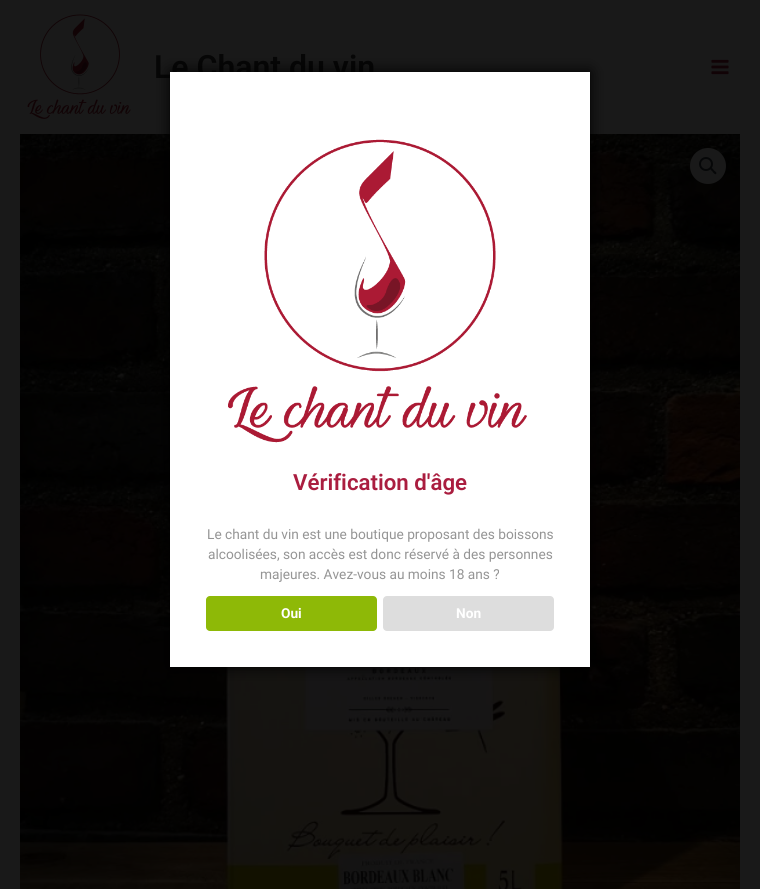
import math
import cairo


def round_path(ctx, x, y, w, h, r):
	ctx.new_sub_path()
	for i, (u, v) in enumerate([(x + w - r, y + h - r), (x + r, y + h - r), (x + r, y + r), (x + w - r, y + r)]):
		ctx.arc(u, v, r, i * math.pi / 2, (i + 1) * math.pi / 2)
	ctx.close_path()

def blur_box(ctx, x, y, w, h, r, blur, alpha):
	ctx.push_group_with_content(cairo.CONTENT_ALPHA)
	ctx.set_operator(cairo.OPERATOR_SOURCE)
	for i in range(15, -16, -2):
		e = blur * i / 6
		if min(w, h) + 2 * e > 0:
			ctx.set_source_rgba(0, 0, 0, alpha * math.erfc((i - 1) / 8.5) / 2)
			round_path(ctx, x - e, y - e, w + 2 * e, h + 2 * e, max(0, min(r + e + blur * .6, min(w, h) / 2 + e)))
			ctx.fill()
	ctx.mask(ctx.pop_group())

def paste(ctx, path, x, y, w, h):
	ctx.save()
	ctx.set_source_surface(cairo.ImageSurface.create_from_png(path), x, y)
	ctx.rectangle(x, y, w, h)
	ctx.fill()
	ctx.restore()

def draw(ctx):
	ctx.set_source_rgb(0.098, 0.098, 0.098)
	ctx.paint()
	paste(ctx, 'media/1.png', 27, 14, 104, 105)
	ctx.select_font_face('Roboto SemiBold')
	ctx.set_font_size(32)
	ctx.set_source_rgb(0.024, 0.024, 0.024)
	ctx.move_to(154, 78)
	ctx.show_text('Le Chant du vin')
	paste(ctx, 'media/2.png', 711, 59, 18, 16)
	paste(ctx, 'media/3.png', 20, 134, 720, 755)
	ctx.set_source_rgb(0.098, 0.098, 0.098)
	ctx.arc(708, 166, 18, 0, 2 * math.pi)
	ctx.fill()
	ctx.arc(706, 164, 6, 0, 2 * math.pi)
	ctx.set_source_rgb(0.027, 0.031, 0.035)
	ctx.stroke()
	ctx.new_path()
	ctx.move_to(710.5, 168)
	ctx.curve_to(711.5, 167, 713.5, 169.5, 714, 170.5)
	ctx.curve_to(714.5, 171, 717.5, 172.5, 716, 174)
	ctx.curve_to(715, 175, 713, 172.5, 712.5, 171.5)
	ctx.curve_to(712, 171, 709.5, 169.5, 710.5, 168)
	ctx.close_path()
	ctx.fill()
	ctx.set_source_rgb(0, 0, 0)
	blur_box(ctx, 170, 72, 420, 595, 0, 7.5, 1)
	ctx.set_source_rgb(1, 1, 1)
	ctx.rectangle(170, 72, 420, 595)
	ctx.fill()
	paste(ctx, 'media/4.png', 228, 139, 299, 304)
	ctx.set_font_size(22.25)
	ctx.set_source_rgb(0.667, 0.114, 0.247)
	ctx.move_to(293, 490)
	ctx.show_text('Vérification d\'âge')
	ctx.select_font_face('Roboto')
	ctx.set_font_size(13.7)
	ctx.set_source_rgb(0.584, 0.584, 0.584)
	for x, y, s in [
		(207, 539, 'Le chant du vin est une boutique proposant des boissons'),
		(208, 559, 'alcoolisées, son accès est donc réservé à des personnes'),
		(260, 579, 'majeures. Avez-vous au moins 18 ans ?'),
	]:
		ctx.move_to(x, y)
		ctx.show_text(s)
	ctx.set_source_rgb(0.557, 0.725, 0.031)
	round_path(ctx, 206, 596, 171, 35, 4)
	ctx.fill()
	ctx.select_font_face('Roboto', cairo.FONT_SLANT_NORMAL, cairo.FONT_WEIGHT_BOLD)
	ctx.set_source_rgb(1, 1, 1)
	ctx.move_to(281, 618)
	ctx.show_text('Oui')
	ctx.set_source_rgb(0.867, 0.867, 0.867)
	round_path(ctx, 383, 596, 171, 35, 4)
	ctx.fill()
	ctx.set_source_rgb(1, 1, 1)
	ctx.move_to(456, 618)
	ctx.show_text('Non')


surface = cairo.ImageSurface(cairo.FORMAT_RGB24, 760, 889)
ctx = cairo.Context(surface)
options = cairo.FontOptions()
options.set_hint_metrics(cairo.HINT_METRICS_OFF)
options.set_hint_style(cairo.HINT_STYLE_NONE)
ctx.set_font_options(options)
ctx.set_miter_limit(4)
draw(ctx)
surface.write_to_png('image.png')
